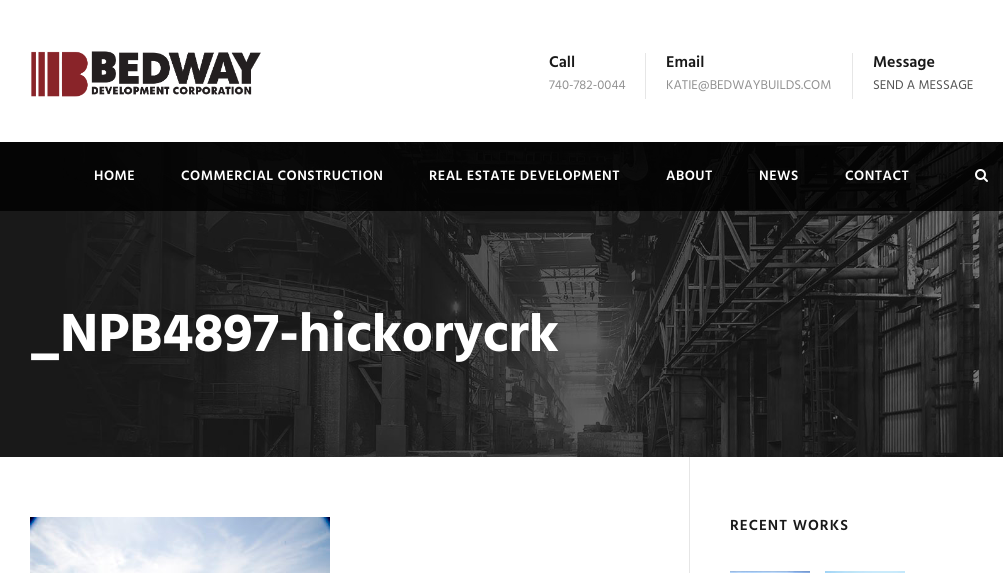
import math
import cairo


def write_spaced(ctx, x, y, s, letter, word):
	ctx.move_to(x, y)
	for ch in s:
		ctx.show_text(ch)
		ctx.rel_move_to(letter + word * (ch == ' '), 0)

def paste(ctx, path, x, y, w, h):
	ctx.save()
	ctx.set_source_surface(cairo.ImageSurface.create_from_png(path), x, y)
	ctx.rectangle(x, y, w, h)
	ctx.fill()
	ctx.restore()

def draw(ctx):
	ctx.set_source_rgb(1, 1, 1)
	ctx.paint()
	paste(ctx, 'media/1.png', 31, 51, 230, 46)
	ctx.select_font_face('Hind SemiBold')
	ctx.set_font_size(16)
	ctx.set_source_rgb(0.098, 0.098, 0.098)
	ctx.move_to(549, 67)
	ctx.show_text('Call')
	ctx.select_font_face('Hind')
	ctx.set_font_size(13)
	ctx.set_source_rgb(0.573, 0.573, 0.573)
	ctx.move_to(549, 89)
	ctx.show_text('740-782-0044')
	ctx.set_source_rgb(0.902, 0.902, 0.902)
	ctx.rectangle(645, 53, 1, 46)
	ctx.fill()
	ctx.select_font_face('Hind SemiBold')
	ctx.set_font_size(16)
	ctx.set_source_rgb(0.098, 0.098, 0.098)
	ctx.move_to(666, 67)
	ctx.show_text('Email')
	ctx.select_font_face('Hind')
	ctx.set_font_size(13)
	ctx.set_source_rgb(0.573, 0.573, 0.573)
	ctx.move_to(666, 89)
	ctx.show_text('KATIE@BEDWAYBUILDS.COM')
	ctx.set_source_rgb(0.902, 0.902, 0.902)
	ctx.rectangle(852, 53, 1, 46)
	ctx.fill()
	ctx.select_font_face('Hind SemiBold')
	ctx.set_font_size(16)
	ctx.set_source_rgb(0.098, 0.098, 0.098)
	ctx.move_to(873, 67)
	ctx.show_text('Message')
	ctx.select_font_face('Hind')
	ctx.set_font_size(13)
	ctx.set_source_rgb(0.329, 0.329, 0.329)
	ctx.move_to(873, 89)
	ctx.show_text('SEND A MESSAGE')
	paste(ctx, 'media/3.png', 0, 142, 1003, 315)
	ctx.set_source_rgba(0, 0, 0, 0.82)
	ctx.rectangle(0, 142, 1003, 69)
	ctx.fill()
	ctx.select_font_face('Hind SemiBold')
	ctx.set_font_size(14)
	ctx.set_source_rgb(1, 1, 1)
	for x, y, s in [
		(94, 180, 'HOME'),
		(181, 180, 'COMMERCIAL CONSTRUCTION'),
		(429, 180, 'REAL ESTATE DEVELOPMENT'),
		(666, 180, 'ABOUT'),
		(759, 180, 'NEWS'),
		(845, 180, 'CONTACT'),
	]:
		write_spaced(ctx, x, y, s, 0.5, 0)
	paste(ctx, 'media/2.png', 975, 169, 13, 13)
	ctx.select_font_face('Hind', cairo.FONT_SLANT_NORMAL, cairo.FONT_WEIGHT_BOLD)
	ctx.set_font_size(55)
	ctx.move_to(30, 351)
	ctx.show_text('_NPB4897-hickorycrk')
	paste(ctx, 'media/4.png', 30, 517, 300, 56)
	ctx.set_source_rgb(0.902, 0.902, 0.902)
	ctx.rectangle(689, 457, 1, 116)
	ctx.fill()
	ctx.select_font_face('Hind SemiBold')
	ctx.set_font_size(15)
	ctx.set_source_rgb(0.098, 0.098, 0.098)
	write_spaced(ctx, 730, 530, 'RECENT WORKS', 1, 0)
	paste(ctx, 'media/5.png', 730, 571, 80, 2)
	paste(ctx, 'media/6.png', 825, 571, 80, 2)


surface = cairo.ImageSurface(cairo.FORMAT_RGB24, 1003, 573)
ctx = cairo.Context(surface)
options = cairo.FontOptions()
options.set_hint_metrics(cairo.HINT_METRICS_OFF)
options.set_hint_style(cairo.HINT_STYLE_NONE)
ctx.set_font_options(options)
ctx.set_miter_limit(4)
draw(ctx)
surface.write_to_png('image.png')
